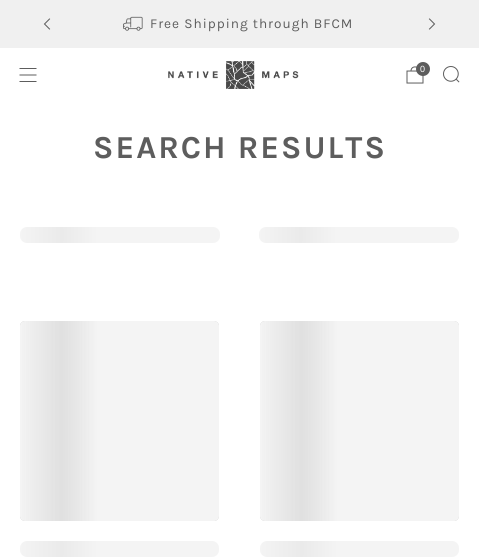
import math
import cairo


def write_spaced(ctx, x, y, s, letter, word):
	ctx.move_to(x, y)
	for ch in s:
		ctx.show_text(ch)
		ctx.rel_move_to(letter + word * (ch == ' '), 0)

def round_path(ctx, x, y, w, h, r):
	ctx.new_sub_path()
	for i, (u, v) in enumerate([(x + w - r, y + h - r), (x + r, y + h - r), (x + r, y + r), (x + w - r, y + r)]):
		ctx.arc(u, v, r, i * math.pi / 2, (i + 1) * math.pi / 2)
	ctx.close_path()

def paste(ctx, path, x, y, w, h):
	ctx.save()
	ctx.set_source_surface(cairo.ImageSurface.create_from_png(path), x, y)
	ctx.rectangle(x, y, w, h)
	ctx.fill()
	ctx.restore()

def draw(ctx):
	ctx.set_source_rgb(1, 1, 1)
	ctx.paint()
	ctx.set_source_rgb(0.941, 0.941, 0.941)
	ctx.rectangle(0, 0, 479, 48)
	ctx.fill()
	ctx.new_path()
	ctx.move_to(49.5, 29)
	ctx.line_to(44.5, 24)
	ctx.line_to(49.5, 19)
	ctx.set_source_rgb(0.365, 0.365, 0.365)
	ctx.set_line_width(1)
	ctx.set_line_cap(cairo.LINE_CAP_SQUARE)
	ctx.stroke()
	paste(ctx, 'media/1.png', 123, 16, 20, 15)
	ctx.select_font_face('Karla')
	ctx.set_font_size(13.6)
	write_spaced(ctx, 150, 28, 'Free Shipping through BFCM', 1, 0)
	ctx.new_path()
	ctx.move_to(429.5, 19)
	ctx.line_to(434.5, 24)
	ctx.line_to(429.5, 29)
	ctx.stroke()
	ctx.new_path()
	ctx.move_to(19.5, 68.5)
	ctx.line_to(36.5, 68.5)
	ctx.move_to(19.5, 75)
	ctx.line_to(36.5, 75)
	ctx.move_to(19.5, 81.5)
	ctx.line_to(36.5, 81.5)
	ctx.set_line_cap(cairo.LINE_CAP_BUTT)
	ctx.stroke()
	paste(ctx, 'media/2.png', 168, 61, 131, 28)
	ctx.new_path()
	ctx.move_to(419, 71)
	ctx.curve_to(419, 65.5, 411, 65.5, 411, 71)
	ctx.move_to(407, 71)
	ctx.line_to(423, 71)
	ctx.line_to(423, 83)
	ctx.line_to(407, 83)
	ctx.close_path()
	ctx.stroke()
	ctx.arc(423, 69, 7, 0, 2 * math.pi)
	ctx.fill()
	ctx.select_font_face('Liberation Sans')
	ctx.set_font_size(9)
	ctx.set_source_rgb(1, 1, 1)
	ctx.move_to(420, 72)
	ctx.show_text('0')
	paste(ctx, 'media/3.png', 443, 66, 17, 17)
	ctx.select_font_face('Karla', cairo.FONT_SLANT_NORMAL, cairo.FONT_WEIGHT_BOLD)
	ctx.set_font_size(32)
	ctx.set_source_rgb(0.365, 0.365, 0.365)
	write_spaced(ctx, 93, 158, 'SEARCH RESULTS', 2, 0)
	gradient = cairo.LinearGradient(20, 235, 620, 235)
	gradient.add_color_stop_rgba(0, 0.957, 0.957, 0.957, 1)
	gradient.add_color_stop_rgba(0.07, 0.918, 0.918, 0.918, 1)
	gradient.add_color_stop_rgba(0.13, 0.957, 0.957, 0.957, 1)
	ctx.set_source(gradient)
	round_path(ctx, 20, 227, 200, 16, 7)
	ctx.fill()
	gradient = cairo.LinearGradient(259, 235, 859, 235)
	gradient.add_color_stop_rgba(0, 0.957, 0.957, 0.957, 1)
	gradient.add_color_stop_rgba(0.07, 0.918, 0.918, 0.918, 1)
	gradient.add_color_stop_rgba(0.13, 0.957, 0.957, 0.957, 1)
	ctx.set_source(gradient)
	round_path(ctx, 259, 227, 200, 16, 7)
	ctx.fill()
	ctx.set_source_rgb(0.8, 0.8, 0.8)
	round_path(ctx, 20, 321, 199, 200, 5)
	ctx.fill()
	gradient = cairo.LinearGradient(20, 421, 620, 421)
	gradient.add_color_stop_rgba(0, 0.957, 0.957, 0.957, 1)
	gradient.add_color_stop_rgba(0.07, 0.898, 0.898, 0.898, 0.8)
	gradient.add_color_stop_rgba(0.13, 0.957, 0.957, 0.957, 1)
	ctx.set_source(gradient)
	round_path(ctx, 20, 321, 199, 200, 5)
	ctx.fill()
	gradient = cairo.LinearGradient(20, 549, 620, 549)
	gradient.add_color_stop_rgba(0, 0.957, 0.957, 0.957, 1)
	gradient.add_color_stop_rgba(0.07, 0.918, 0.918, 0.918, 1)
	gradient.add_color_stop_rgba(0.13, 0.957, 0.957, 0.957, 1)
	ctx.set_source(gradient)
	round_path(ctx, 20, 541, 199, 16, 7)
	ctx.fill()
	ctx.set_source_rgb(0.8, 0.8, 0.8)
	round_path(ctx, 260, 321, 199, 200, 5)
	ctx.fill()
	gradient = cairo.LinearGradient(260, 421, 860, 421)
	gradient.add_color_stop_rgba(0, 0.957, 0.957, 0.957, 1)
	gradient.add_color_stop_rgba(0.07, 0.898, 0.898, 0.898, 0.8)
	gradient.add_color_stop_rgba(0.13, 0.957, 0.957, 0.957, 1)
	ctx.set_source(gradient)
	round_path(ctx, 260, 321, 199, 200, 5)
	ctx.fill()
	gradient = cairo.LinearGradient(260, 549, 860, 549)
	gradient.add_color_stop_rgba(0, 0.957, 0.957, 0.957, 1)
	gradient.add_color_stop_rgba(0.07, 0.918, 0.918, 0.918, 1)
	gradient.add_color_stop_rgba(0.13, 0.957, 0.957, 0.957, 1)
	ctx.set_source(gradient)
	round_path(ctx, 260, 541, 199, 16, 7)
	ctx.fill()


surface = cairo.ImageSurface(cairo.FORMAT_RGB24, 479, 557)
ctx = cairo.Context(surface)
options = cairo.FontOptions()
options.set_hint_metrics(cairo.HINT_METRICS_OFF)
options.set_hint_style(cairo.HINT_STYLE_NONE)
ctx.set_font_options(options)
ctx.set_miter_limit(4)
draw(ctx)
surface.write_to_png('image.png')
